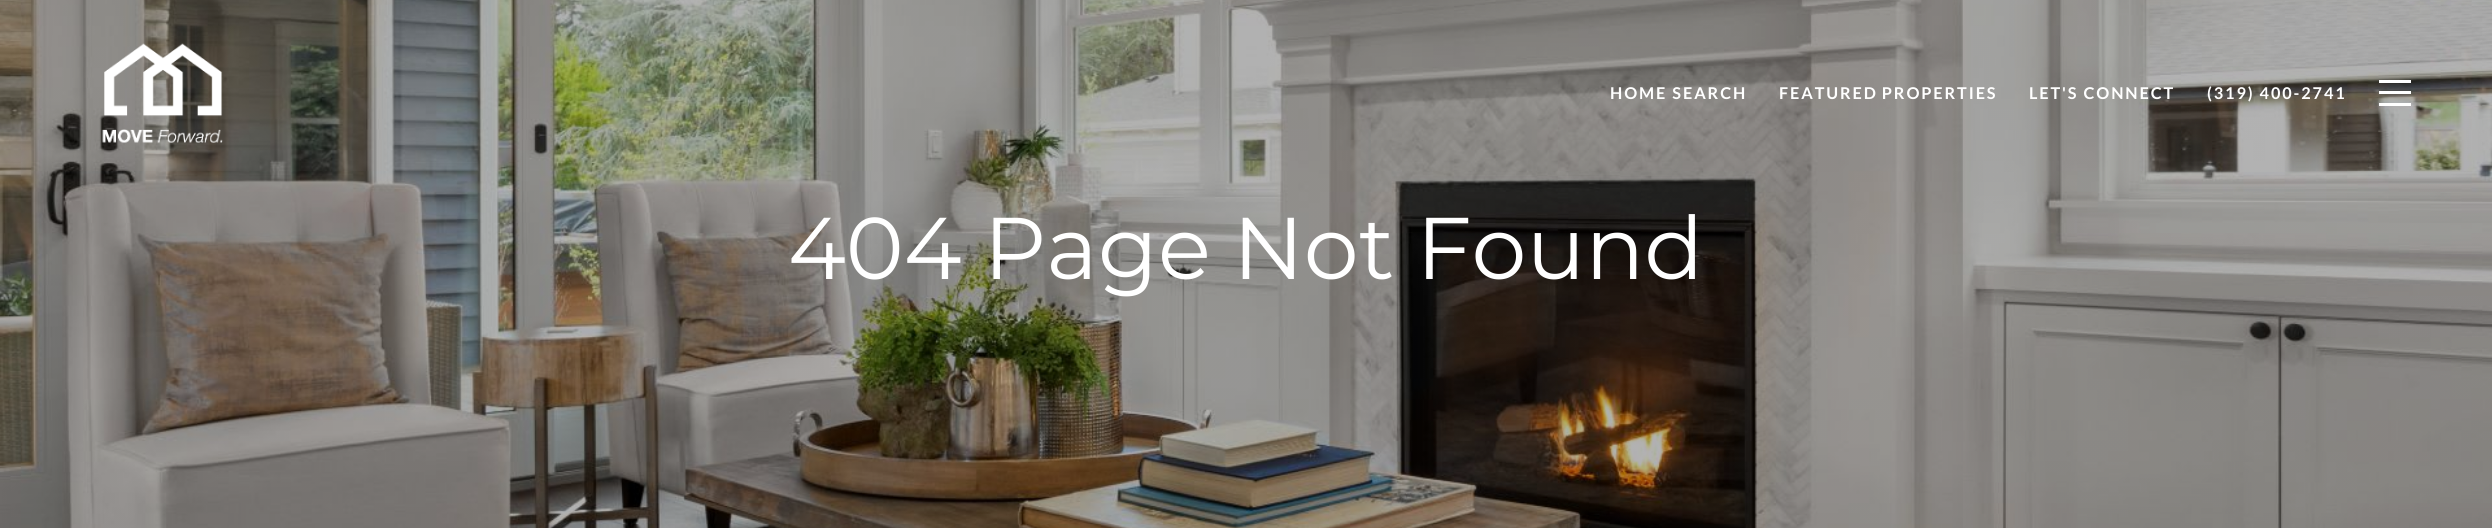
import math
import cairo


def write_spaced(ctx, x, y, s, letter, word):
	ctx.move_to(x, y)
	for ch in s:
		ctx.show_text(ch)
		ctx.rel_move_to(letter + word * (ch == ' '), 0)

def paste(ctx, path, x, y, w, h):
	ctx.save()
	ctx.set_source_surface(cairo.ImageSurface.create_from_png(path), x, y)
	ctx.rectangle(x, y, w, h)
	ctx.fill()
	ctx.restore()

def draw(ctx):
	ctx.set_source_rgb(1, 1, 1)
	ctx.paint()
	paste(ctx, 'media/2.png', 0, 0, 2492, 528)
	paste(ctx, 'media/1.png', 102, 43, 121, 100)
	ctx.select_font_face('Lato', cairo.FONT_SLANT_NORMAL, cairo.FONT_WEIGHT_BOLD)
	ctx.set_font_size(16.25)
	ctx.set_source_rgb(1, 1, 1)
	write_spaced(ctx, 1610, 99, 'HOME SEARCH', 1.9, 0)
	write_spaced(ctx, 1779, 99, 'FEATURED PROPERTIES', 1.9, -1)
	write_spaced(ctx, 2029, 99, 'LET\'S CONNECT', 1.9, 0)
	write_spaced(ctx, 2207, 99, '(319) 400-2741', 1.9, 0)
	ctx.rectangle(2379, 91, 32, 3)
	ctx.rectangle(2379, 80, 32, 3)
	ctx.rectangle(2379, 103, 32, 3)
	ctx.fill()
	ctx.select_font_face('Montserrat')
	ctx.set_font_size(87.5)
	write_spaced(ctx, 788, 279, '404 Page Not Found', 0, -1)


surface = cairo.ImageSurface(cairo.FORMAT_RGB24, 2492, 528)
ctx = cairo.Context(surface)
options = cairo.FontOptions()
options.set_hint_metrics(cairo.HINT_METRICS_OFF)
options.set_hint_style(cairo.HINT_STYLE_NONE)
ctx.set_font_options(options)
ctx.set_miter_limit(4)
draw(ctx)
surface.write_to_png('image.png')
